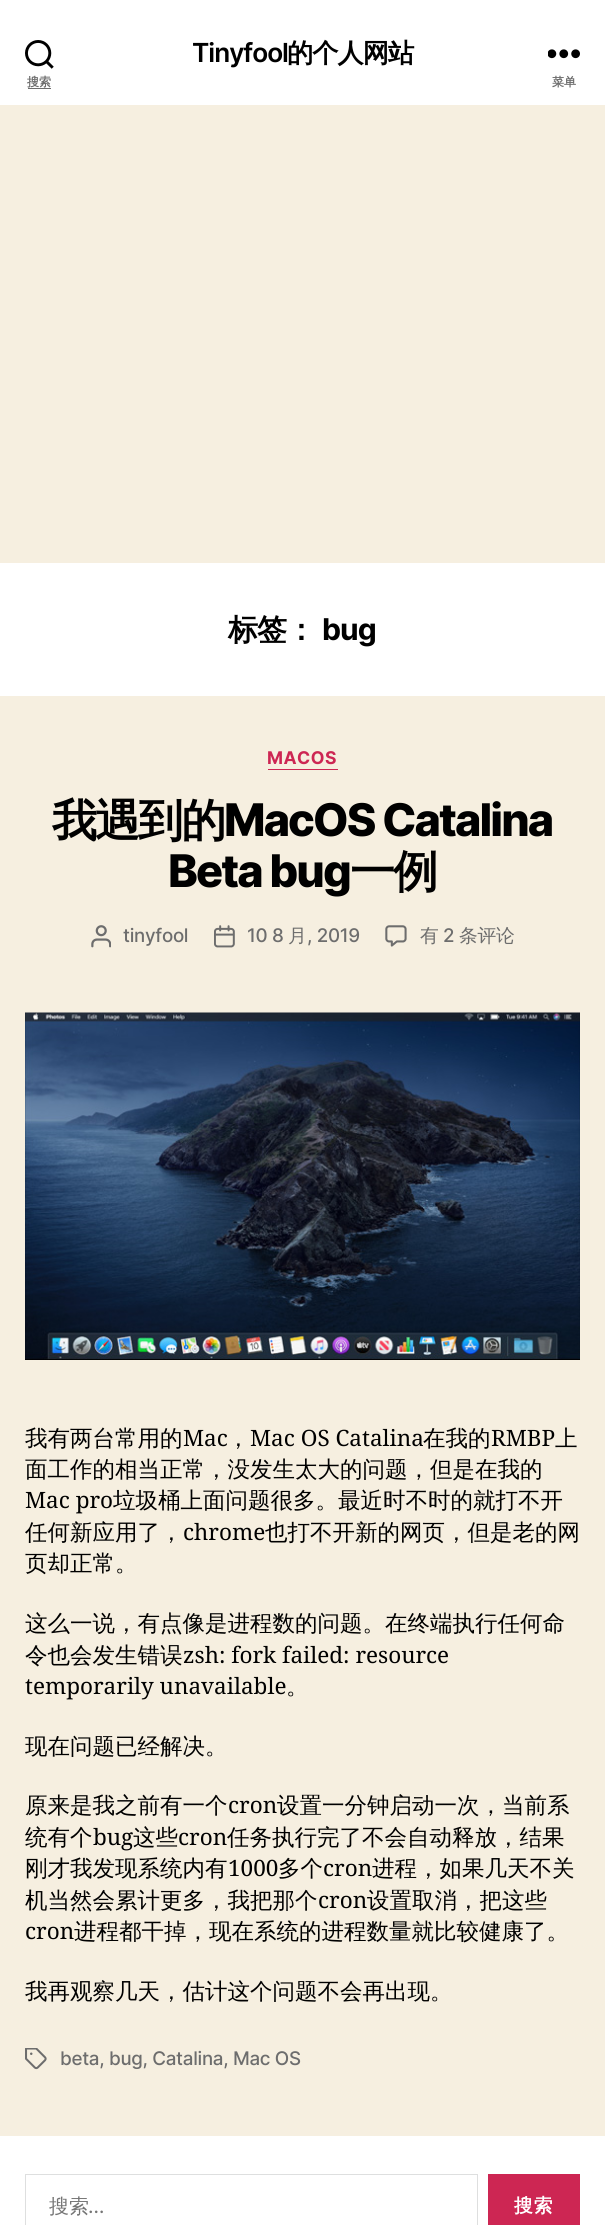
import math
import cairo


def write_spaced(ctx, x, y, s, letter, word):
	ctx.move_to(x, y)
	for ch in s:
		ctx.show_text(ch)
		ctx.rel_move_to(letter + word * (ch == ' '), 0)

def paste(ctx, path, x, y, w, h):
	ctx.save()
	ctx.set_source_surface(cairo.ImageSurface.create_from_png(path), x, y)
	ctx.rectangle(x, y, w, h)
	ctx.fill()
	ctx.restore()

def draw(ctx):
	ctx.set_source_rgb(0.961, 0.937, 0.878)
	ctx.paint()
	ctx.set_source_rgb(1, 1, 1)
	ctx.rectangle(0, 0, 605, 105)
	ctx.fill()
	ctx.select_font_face('Inter SemiBold')
	ctx.set_font_size(26.25)
	ctx.set_source_rgb(0, 0, 0)
	write_spaced(ctx, 192, 62, 'Tinyfool', -1, 0)
	ctx.select_font_face('WenQuanYi Zen Hei', cairo.FONT_SLANT_NORMAL, cairo.FONT_WEIGHT_BOLD)
	write_spaced(ctx, 287, 62, '的个人网站', -1, 0)
	paste(ctx, 'media/1.png', 25, 40, 29, 29)
	ctx.set_font_size(12)
	ctx.set_source_rgb(0.427, 0.427, 0.427)
	ctx.move_to(27, 86)
	ctx.show_text('搜索')
	ctx.rectangle(28, 88, 23, 1)
	ctx.fill()
	paste(ctx, 'media/2.png', 548, 49, 32, 10)
	ctx.move_to(552, 86)
	ctx.show_text('菜单')
	ctx.set_source_rgb(1, 1, 1)
	ctx.rectangle(0, 563, 605, 133)
	ctx.fill()
	ctx.set_font_size(30)
	ctx.set_source_rgb(0, 0, 0)
	write_spaced(ctx, 228, 640, '标签：', -1, 0)
	ctx.select_font_face('Inter', cairo.FONT_SLANT_NORMAL, cairo.FONT_WEIGHT_BOLD)
	write_spaced(ctx, 322, 640, 'bug', -1, 0)
	ctx.set_source_rgb(0.804, 0.149, 0.325)
	ctx.rectangle(268, 769, 70, 1)
	ctx.fill()
	ctx.set_font_size(17.5)
	write_spaced(ctx, 267, 764, 'MACOS', 0.5, 0)
	ctx.select_font_face('WenQuanYi Zen Hei', cairo.FONT_SLANT_NORMAL, cairo.FONT_WEIGHT_BOLD)
	ctx.set_font_size(45)
	ctx.set_source_rgb(0, 0, 0)
	write_spaced(ctx, 52, 836, '我遇到的', -1.9, 0)
	ctx.select_font_face('Inter ExtraBold')
	write_spaced(ctx, 224, 836, 'MacOS Catalina', -1.9, 0)
	write_spaced(ctx, 168, 887, 'Beta bug', -1.9, 0)
	ctx.select_font_face('WenQuanYi Zen Hei', cairo.FONT_SLANT_NORMAL, cairo.FONT_WEIGHT_BOLD)
	write_spaced(ctx, 350, 887, '一例', -1.9, 0)
	paste(ctx, 'media/3.png', 91, 925, 20, 23)
	ctx.select_font_face('Inter Medium')
	ctx.set_font_size(18.75)
	ctx.set_source_rgb(0.427, 0.427, 0.427)
	write_spaced(ctx, 123, 942, 'tinyfool', -0.3, 0)
	paste(ctx, 'media/4.png', 214, 925, 21, 23)
	write_spaced(ctx, 247, 942, '10 8', -0.3, 0)
	ctx.select_font_face('WenQuanYi Zen Hei Medium')
	write_spaced(ctx, 288, 942, '月', -0.3, 0)
	ctx.select_font_face('Inter Medium')
	write_spaced(ctx, 307, 942, ', 2019', -0.3, 0)
	paste(ctx, 'media/5.png', 385, 925, 22, 22)
	ctx.select_font_face('WenQuanYi Zen Hei Medium')
	write_spaced(ctx, 420, 942, '有', -0.3, 0)
	ctx.select_font_face('Inter Medium')
	write_spaced(ctx, 443, 942, '2', -0.3, 0)
	ctx.select_font_face('WenQuanYi Zen Hei Medium')
	write_spaced(ctx, 459, 942, '条评论', -0.3, 0)
	paste(ctx, 'media/6.png', 25, 1012, 555, 348)
	ctx.set_font_size(22.5)
	ctx.set_source_rgb(0, 0, 0)
	ctx.move_to(25, 1446)
	ctx.show_text('我有两台常用的')
	ctx.select_font_face('Noto Serif')
	ctx.move_to(183, 1446)
	ctx.show_text('Mac')
	ctx.select_font_face('WenQuanYi Zen Hei Medium')
	ctx.move_to(227, 1446)
	ctx.show_text('，')
	ctx.select_font_face('Noto Serif')
	ctx.move_to(250, 1446)
	ctx.show_text('Mac OS Catalina')
	ctx.select_font_face('WenQuanYi Zen Hei Medium')
	ctx.move_to(423, 1446)
	ctx.show_text('在我的')
	ctx.select_font_face('Noto Serif')
	ctx.move_to(491, 1446)
	ctx.show_text('RMBP')
	ctx.select_font_face('WenQuanYi Zen Hei Medium')
	ctx.move_to(555, 1446)
	ctx.show_text('上')
	ctx.move_to(25, 1477)
	ctx.show_text('面工作的相当正常，没发生太大的问题，但是在我的')
	ctx.select_font_face('Noto Serif')
	ctx.move_to(25, 1508)
	ctx.show_text('Mac pro')
	ctx.select_font_face('WenQuanYi Zen Hei Medium')
	ctx.move_to(113, 1508)
	ctx.show_text('垃圾桶上面问题很多。最近时不时的就打不开')
	ctx.move_to(25, 1540)
	ctx.show_text('任何新应用了，')
	ctx.select_font_face('Noto Serif')
	ctx.move_to(183, 1540)
	ctx.show_text('chrome')
	ctx.select_font_face('WenQuanYi Zen Hei Medium')
	for x, y, s in [
		(265, 1540, '也打不开新的网页，但是老的网'),
		(25, 1571, '页却正常。'),
		(25, 1631, '这么一说，有点像是进程数的问题。在终端执行任何命'),
		(25, 1663, '令也会发生错误'),
	]:
		ctx.move_to(x, y)
		ctx.show_text(s)
	ctx.select_font_face('Noto Serif')
	ctx.move_to(183, 1663)
	ctx.show_text('zsh: fork failed: resource')
	ctx.move_to(25, 1694)
	ctx.show_text('temporarily unavailable')
	ctx.select_font_face('WenQuanYi Zen Hei Medium')
	for x, y, s in [
		(286, 1694, '。'),
		(25, 1754, '现在问题已经解决。'),
		(25, 1813, '原来是我之前有一个'),
	]:
		ctx.move_to(x, y)
		ctx.show_text(s)
	ctx.select_font_face('Noto Serif')
	ctx.move_to(228, 1813)
	ctx.show_text('cron')
	ctx.select_font_face('WenQuanYi Zen Hei Medium')
	ctx.move_to(277, 1813)
	ctx.show_text('设置一分钟启动一次，当前系')
	ctx.move_to(25, 1845)
	ctx.show_text('统有个')
	ctx.select_font_face('Noto Serif')
	ctx.move_to(93, 1845)
	ctx.show_text('bug')
	ctx.select_font_face('WenQuanYi Zen Hei Medium')
	ctx.move_to(133, 1845)
	ctx.show_text('这些')
	ctx.select_font_face('Noto Serif')
	ctx.move_to(178, 1845)
	ctx.show_text('cron')
	ctx.select_font_face('WenQuanYi Zen Hei Medium')
	ctx.move_to(227, 1845)
	ctx.show_text('任务执行完了不会自动释放，结果')
	ctx.move_to(25, 1876)
	ctx.show_text('刚才我发现系统内有')
	ctx.select_font_face('Noto Serif')
	ctx.move_to(228, 1876)
	ctx.show_text('1000')
	ctx.select_font_face('WenQuanYi Zen Hei Medium')
	ctx.move_to(278, 1876)
	ctx.show_text('多个')
	ctx.select_font_face('Noto Serif')
	ctx.move_to(323, 1876)
	ctx.show_text('cron')
	ctx.select_font_face('WenQuanYi Zen Hei Medium')
	ctx.move_to(372, 1876)
	ctx.show_text('进程，如果几天不关')
	ctx.move_to(25, 1908)
	ctx.show_text('机当然会累计更多，我把那个')
	ctx.select_font_face('Noto Serif')
	ctx.move_to(318, 1908)
	ctx.show_text('cron')
	ctx.select_font_face('WenQuanYi Zen Hei Medium')
	ctx.move_to(367, 1908)
	ctx.show_text('设置取消，把这些')
	ctx.select_font_face('Noto Serif')
	ctx.move_to(25, 1939)
	ctx.show_text('cron')
	ctx.select_font_face('WenQuanYi Zen Hei Medium')
	ctx.move_to(74, 1939)
	ctx.show_text('进程都干掉，现在系统的进程数量就比较健康了。')
	ctx.move_to(25, 1999)
	ctx.show_text('我再观察几天，估计这个问题不会再出现。')
	paste(ctx, 'media/7.png', 25, 2048, 22, 22)
	ctx.select_font_face('Inter Medium')
	ctx.set_font_size(18.75)
	ctx.set_source_rgb(0.427, 0.427, 0.427)
	write_spaced(ctx, 60, 2065, 'beta, bug, Catalina, Mac OS', -0.3, 0)
	ctx.set_source_rgb(1, 1, 1)
	ctx.rectangle(0, 2136, 605, 89)
	ctx.fill()
	ctx.rectangle(25.5, 2174.5, 452, 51)
	ctx.set_source_rgb(0.871, 0.875, 0.875)
	ctx.set_line_width(1)
	ctx.stroke()
	ctx.select_font_face('WenQuanYi Zen Hei Medium')
	ctx.set_font_size(20)
	ctx.set_source_rgb(0.459, 0.459, 0.459)
	ctx.move_to(49, 2213)
	ctx.show_text('搜索')
	ctx.select_font_face('Inter')
	ctx.move_to(88, 2213)
	ctx.show_text('…')
	ctx.set_source_rgb(0.804, 0.149, 0.325)
	ctx.rectangle(488, 2174, 92, 51)
	ctx.fill()
	ctx.select_font_face('WenQuanYi Zen Hei', cairo.FONT_SLANT_NORMAL, cairo.FONT_WEIGHT_BOLD)
	ctx.set_font_size(18.75)
	ctx.set_source_rgb(1, 1, 1)
	write_spaced(ctx, 514, 2212, '搜索', 1, 0)


surface = cairo.ImageSurface(cairo.FORMAT_RGB24, 605, 2225)
ctx = cairo.Context(surface)
options = cairo.FontOptions()
options.set_hint_metrics(cairo.HINT_METRICS_OFF)
options.set_hint_style(cairo.HINT_STYLE_NONE)
ctx.set_font_options(options)
ctx.set_miter_limit(4)
draw(ctx)
surface.write_to_png('image.png')
